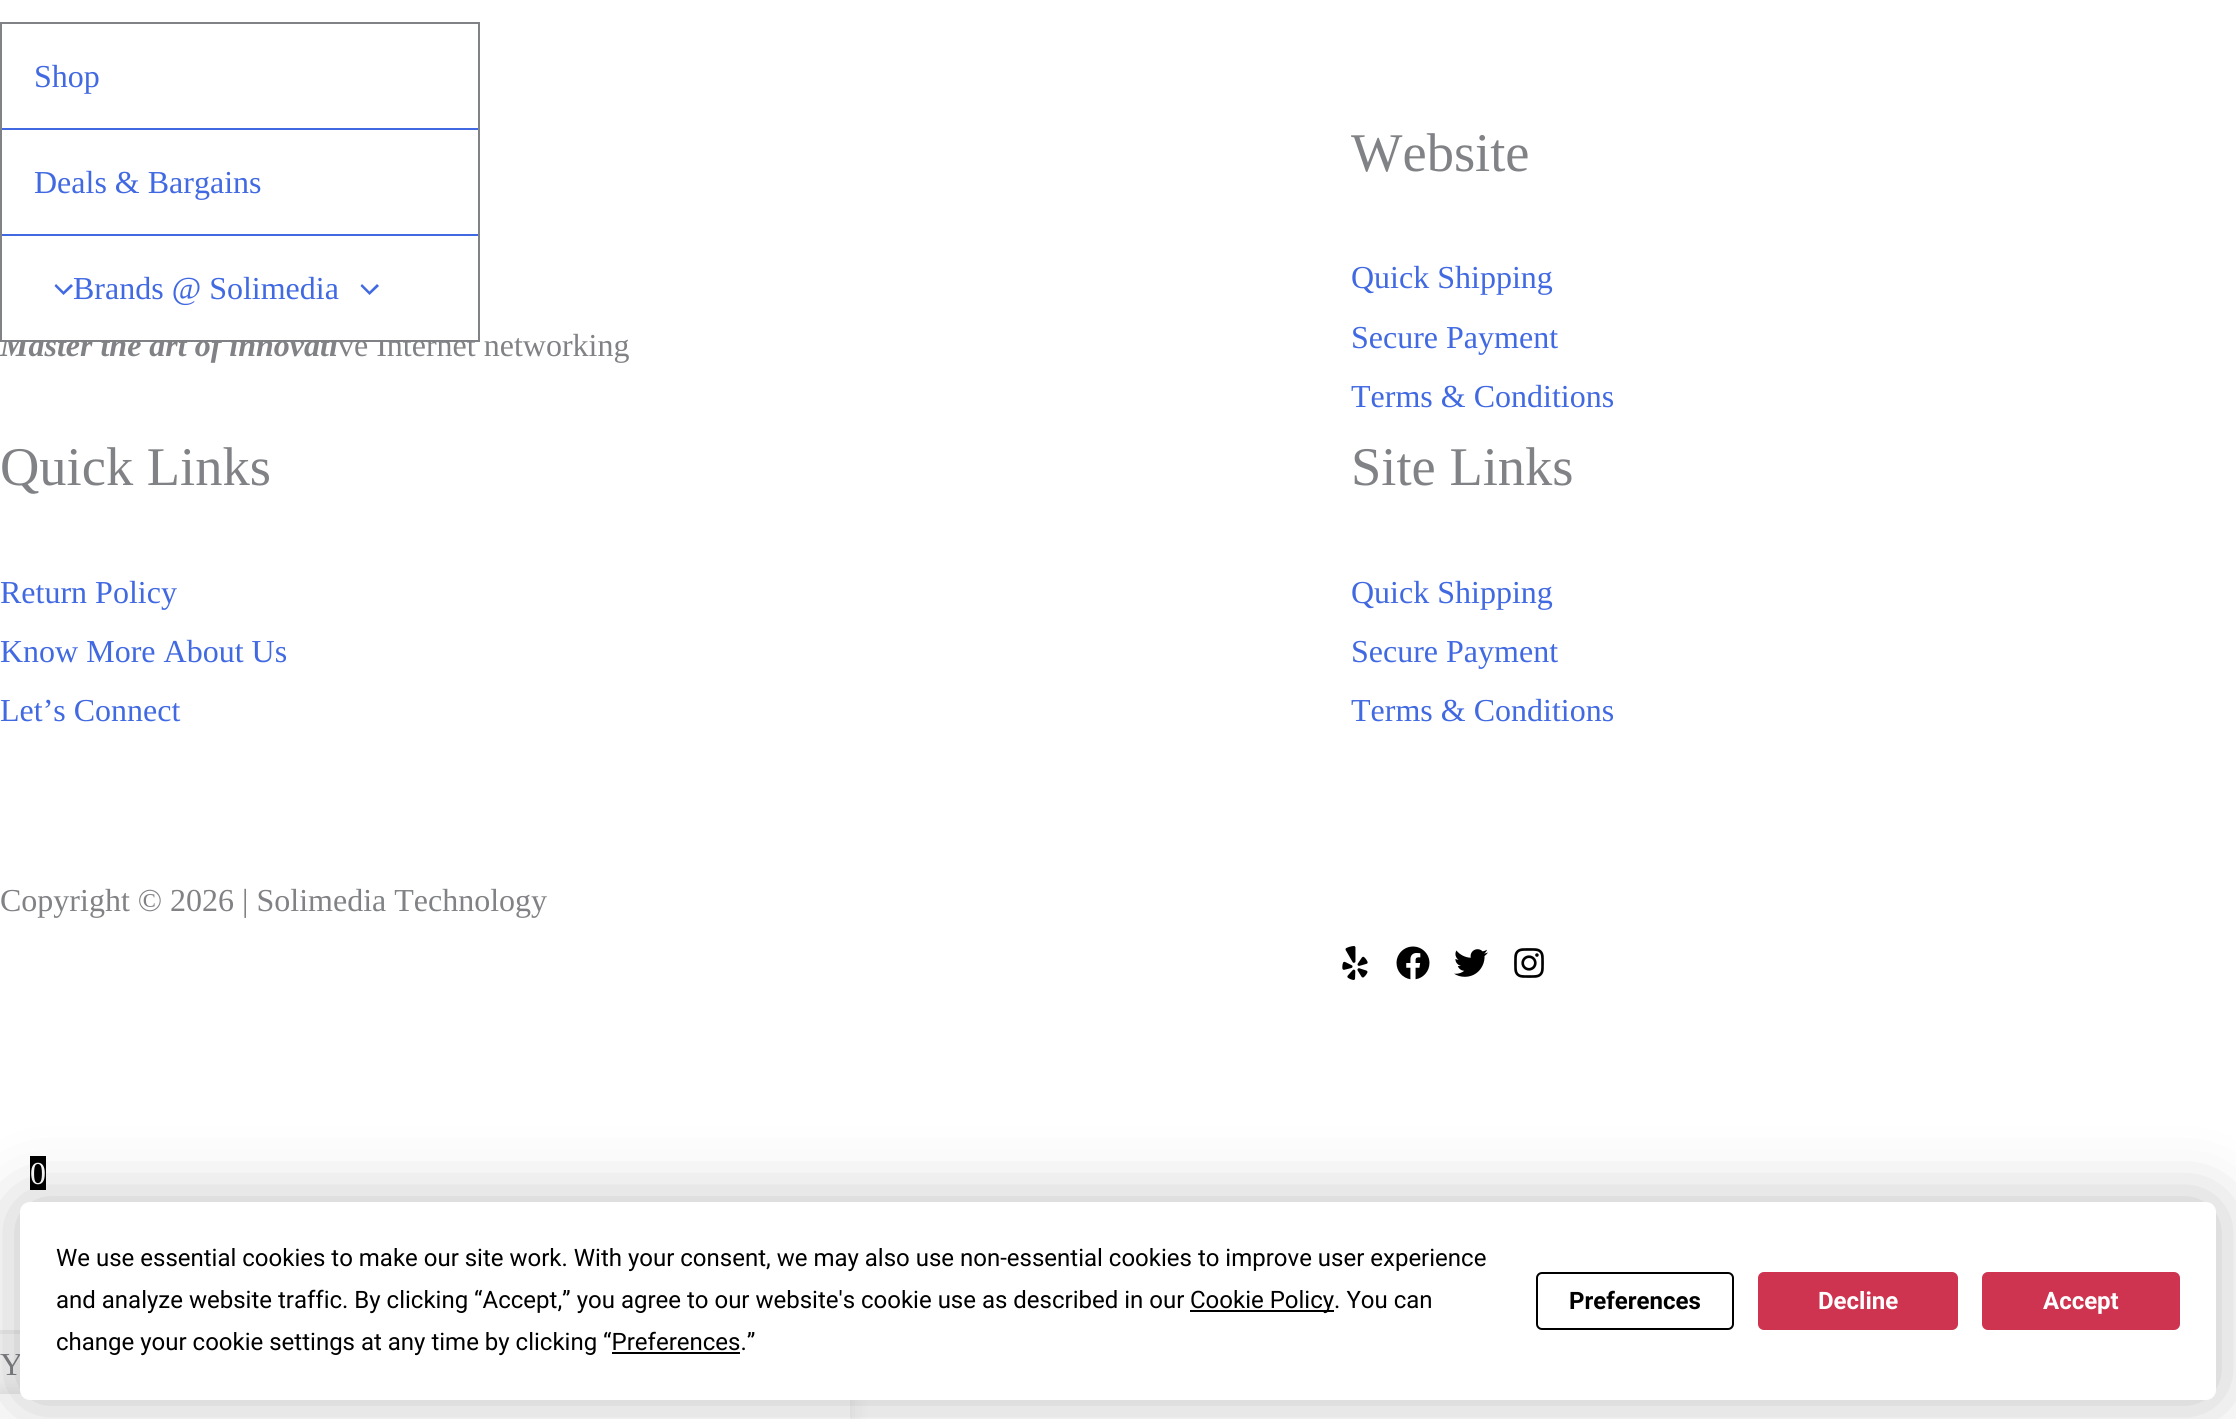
import math
import cairo


def round_path(ctx, x, y, w, h, r):
	ctx.new_sub_path()
	for i, (u, v) in enumerate([(x + w - r, y + h - r), (x + r, y + h - r), (x + r, y + r), (x + w - r, y + r)]):
		ctx.arc(u, v, r, i * math.pi / 2, (i + 1) * math.pi / 2)
	ctx.close_path()

def blur_box(ctx, x, y, w, h, r, blur, alpha):
	ctx.push_group_with_content(cairo.CONTENT_ALPHA)
	ctx.set_operator(cairo.OPERATOR_SOURCE)
	for i in range(15, -16, -2):
		e = blur * i / 6
		if min(w, h) + 2 * e > 0:
			ctx.set_source_rgba(0, 0, 0, alpha * math.erfc((i - 1) / 8.5) / 2)
			round_path(ctx, x - e, y - e, w + 2 * e, h + 2 * e, max(0, min(r + e + blur * .6, min(w, h) / 2 + e)))
			ctx.fill()
	ctx.mask(ctx.pop_group())

def paste(ctx, path, x, y, w, h):
	ctx.save()
	ctx.set_source_surface(cairo.ImageSurface.create_from_png(path), x, y)
	ctx.rectangle(x, y, w, h)
	ctx.fill()
	ctx.restore()

def draw(ctx):
	ctx.set_source_rgb(1, 1, 1)
	ctx.paint()
	ctx.select_font_face('Liberation Serif', cairo.FONT_SLANT_ITALIC, cairo.FONT_WEIGHT_BOLD)
	ctx.set_font_size(32)
	ctx.set_source_rgb(0.502, 0.51, 0.522)
	ctx.move_to(0, 356)
	ctx.show_text('Master the art of innovati')
	ctx.select_font_face('Liberation Serif')
	ctx.move_to(338, 356)
	ctx.show_text('ve Internet networking')
	ctx.set_source_rgb(1, 1, 1)
	ctx.rectangle(3, 333, 469, 7)
	ctx.fill()
	ctx.rectangle(1, 23, 478, 318)
	ctx.set_source_rgb(0.502, 0.51, 0.522)
	ctx.stroke()
	ctx.set_source_rgb(0.255, 0.412, 0.882)
	ctx.rectangle(2, 128, 476, 2)
	ctx.fill()
	ctx.move_to(34, 87)
	ctx.show_text('Shop')
	ctx.rectangle(2, 234, 476, 2)
	ctx.fill()
	ctx.move_to(34, 193)
	ctx.show_text('Deals & Bargains')
	ctx.new_path()
	ctx.move_to(54.5, 286)
	ctx.line_to(63.5, 295)
	ctx.line_to(73, 286)
	ctx.line_to(71, 284)
	ctx.line_to(63.5, 291.5)
	ctx.line_to(56, 284)
	ctx.close_path()
	ctx.fill()
	ctx.move_to(73, 299)
	ctx.show_text('Brands @ Solimedia')
	ctx.new_path()
	ctx.move_to(360.5, 286)
	ctx.line_to(369.5, 295)
	ctx.line_to(379, 286)
	ctx.line_to(377, 284)
	ctx.line_to(369.5, 291.5)
	ctx.line_to(362, 284)
	ctx.close_path()
	ctx.fill()
	ctx.set_font_size(54.5)
	ctx.set_source_rgb(0.502, 0.51, 0.522)
	ctx.move_to(1351, 171)
	ctx.show_text('Website')
	ctx.set_font_size(32)
	ctx.set_source_rgb(0.255, 0.412, 0.882)
	for x, y, s in [
		(1351, 288, 'Quick Shipping'),
		(1351, 348, 'Secure Payment'),
		(1351, 407, 'Terms & Conditions'),
	]:
		ctx.move_to(x, y)
		ctx.show_text(s)
	ctx.set_font_size(54.5)
	ctx.set_source_rgb(0.502, 0.51, 0.522)
	ctx.move_to(0, 485)
	ctx.show_text('Quick Links')
	ctx.set_font_size(32)
	ctx.set_source_rgb(0.255, 0.412, 0.882)
	for x, y, s in [
		(0, 603, 'Return Policy'),
		(0, 662, 'Know More About Us'),
		(0, 721, 'Let’s Connect'),
	]:
		ctx.move_to(x, y)
		ctx.show_text(s)
	ctx.set_font_size(54.5)
	ctx.set_source_rgb(0.502, 0.51, 0.522)
	ctx.move_to(1351, 485)
	ctx.show_text('Site Links')
	ctx.set_font_size(32)
	ctx.set_source_rgb(0.255, 0.412, 0.882)
	for x, y, s in [
		(1351, 603, 'Quick Shipping'),
		(1351, 662, 'Secure Payment'),
		(1351, 721, 'Terms & Conditions'),
	]:
		ctx.move_to(x, y)
		ctx.show_text(s)
	ctx.set_source_rgb(0.502, 0.51, 0.522)
	ctx.move_to(0, 911)
	ctx.show_text('Copyright © 2026 | Solimedia Technology')
	paste(ctx, 'media/1.png', 1342, 946, 26, 34)
	paste(ctx, 'media/2.png', 1396, 946, 34, 34)
	paste(ctx, 'media/3.png', 1454, 949, 34, 28)
	paste(ctx, 'media/4.png', 1514, 948, 30, 30)
	ctx.set_source_rgb(0.933, 0.933, 0.933)
	ctx.rectangle(0, 1330, 20, 4)
	ctx.fill()
	ctx.set_source_rgb(0, 0, 0)
	ctx.rectangle(30, 1156, 16, 34)
	ctx.fill()
	ctx.set_source_rgb(1, 1, 1)
	ctx.move_to(30, 1184)
	ctx.show_text('0')
	ctx.set_source_rgb(0.973, 0.976, 0.98)
	ctx.rectangle(0, 1334, 21, 60)
	ctx.fill()
	ctx.save()
	ctx.set_fill_rule(cairo.FILL_RULE_EVEN_ODD)
	ctx.new_path()
	ctx.move_to(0, 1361)
	ctx.line_to(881, 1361)
	ctx.line_to(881, 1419)
	ctx.line_to(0, 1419)
	ctx.close_path()
	ctx.move_to(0, 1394)
	ctx.line_to(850, 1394)
	ctx.line_to(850, 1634)
	ctx.line_to(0, 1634)
	ctx.close_path()
	ctx.clip()
	ctx.set_source_rgb(0, 0, 0)
	blur_box(ctx, 0, 1392, 850, 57, 0, 10, 0.1)
	ctx.restore()
	ctx.set_source_rgb(0.502, 0.51, 0.522)
	ctx.move_to(0, 1375)
	ctx.show_text('Y')
	ctx.rectangle(242, 1324, 276, 78)
	ctx.set_source_rgb(1, 1, 1)
	ctx.set_line_width(4)
	ctx.stroke()
	ctx.set_source_rgb(0, 0, 0)
	blur_box(ctx, 20, 1202, 2196, 198, 10, 35, 0.25)
	ctx.set_source_rgb(1, 1, 1)
	round_path(ctx, 20, 1202, 2196, 198, 10)
	ctx.fill()
	ctx.select_font_face('Roboto')
	ctx.set_font_size(24)
	ctx.set_source_rgb(0, 0, 0)
	ctx.move_to(56, 1266)
	ctx.show_text('We use essential cookies to make our site work. With your consent, we may also use non-essential cookies to improve user experience')
	ctx.move_to(56, 1308)
	ctx.show_text('and analyze website traffic. By clicking “Accept,” you agree to our website\'s cookie use as described in our')
	ctx.rectangle(1190, 1310, 144, 2)
	ctx.fill()
	ctx.move_to(1190, 1308)
	ctx.show_text('Cookie Policy. You can')
	ctx.move_to(56, 1350)
	ctx.show_text('change your cookie settings at any time by clicking “Preferences.”')
	ctx.rectangle(612, 1352, 128, 2)
	ctx.fill()
	round_path(ctx, 1537, 1273, 196, 56, 5)
	ctx.set_line_width(2)
	ctx.stroke()
	ctx.select_font_face('Roboto', cairo.FONT_SLANT_NORMAL, cairo.FONT_WEIGHT_BOLD)
	ctx.move_to(1569, 1309)
	ctx.show_text('Preferences')
	ctx.set_source_rgb(0.808, 0.2, 0.31)
	round_path(ctx, 1759, 1273, 198, 56, 5)
	ctx.fill_preserve()
	ctx.stroke()
	ctx.set_source_rgb(1, 1, 1)
	ctx.move_to(1818, 1309)
	ctx.show_text('Decline')
	ctx.set_source_rgb(0.808, 0.2, 0.31)
	round_path(ctx, 1983, 1273, 196, 56, 5)
	ctx.fill_preserve()
	ctx.stroke()
	ctx.set_source_rgb(1, 1, 1)
	ctx.move_to(2043, 1309)
	ctx.show_text('Accept')


surface = cairo.ImageSurface(cairo.FORMAT_RGB24, 2236, 1419)
ctx = cairo.Context(surface)
options = cairo.FontOptions()
options.set_hint_metrics(cairo.HINT_METRICS_OFF)
options.set_hint_style(cairo.HINT_STYLE_NONE)
ctx.set_font_options(options)
ctx.set_miter_limit(4)
draw(ctx)
surface.write_to_png('image.png')
